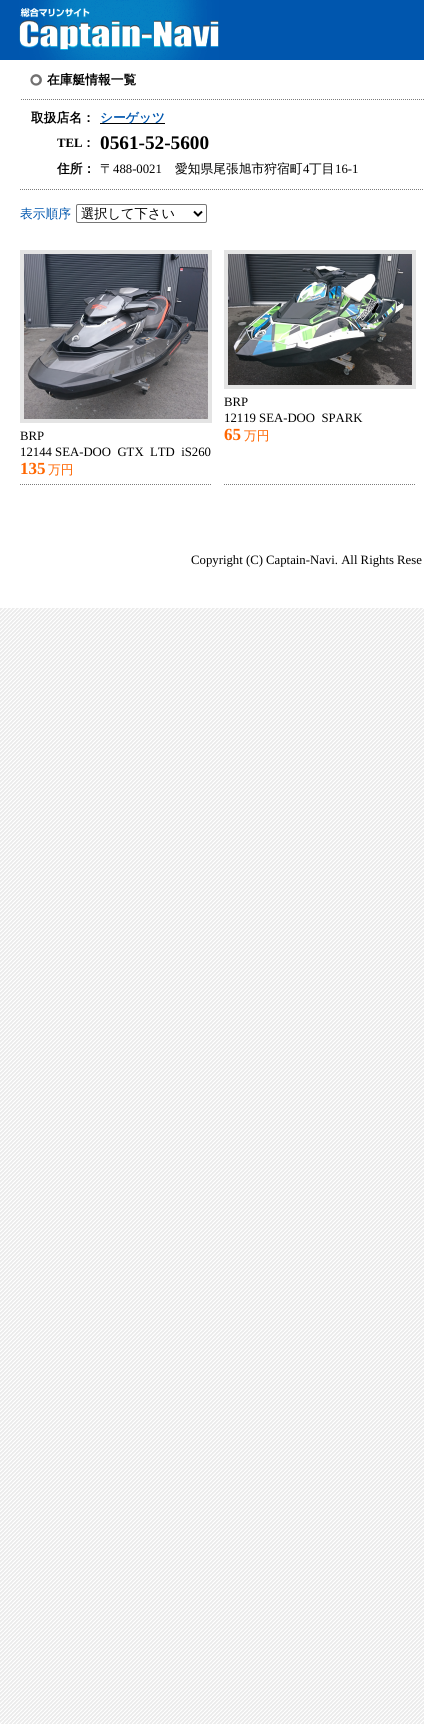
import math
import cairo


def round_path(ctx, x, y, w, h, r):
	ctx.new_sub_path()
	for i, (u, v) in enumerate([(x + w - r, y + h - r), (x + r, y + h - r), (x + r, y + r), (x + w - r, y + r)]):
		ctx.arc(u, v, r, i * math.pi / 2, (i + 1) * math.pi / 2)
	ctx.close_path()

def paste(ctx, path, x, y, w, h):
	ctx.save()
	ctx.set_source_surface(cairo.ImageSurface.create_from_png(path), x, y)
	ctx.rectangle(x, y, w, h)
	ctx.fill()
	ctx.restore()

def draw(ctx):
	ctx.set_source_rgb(1, 1, 1)
	ctx.paint()
	paste(ctx, 'media/1.png', 0, 608, 424, 1116)
	ctx.set_source_rgb(0, 0.337, 0.682)
	ctx.rectangle(0, 0, 424, 60)
	ctx.fill()
	paste(ctx, 'media/2.png', 19, 0, 200, 60)
	paste(ctx, 'media/3.png', 30, 74, 12, 12)
	ctx.select_font_face('WenQuanYi Zen Hei', cairo.FONT_SLANT_NORMAL, cairo.FONT_WEIGHT_BOLD)
	ctx.set_font_size(12.75)
	ctx.set_source_rgb(0, 0, 0)
	ctx.move_to(47, 84)
	ctx.show_text('在庫艇情報一覧')
	paste(ctx, 'media/4.png', 21, 99, 403, 1)
	ctx.move_to(31, 122)
	ctx.show_text('取扱店名：')
	ctx.rectangle(100, 123, 65, 1)
	ctx.fill()
	ctx.set_source_rgb(0, 0.337, 0.682)
	ctx.move_to(100, 122)
	ctx.show_text('シーゲッツ')
	ctx.select_font_face('Liberation Serif', cairo.FONT_SLANT_NORMAL, cairo.FONT_WEIGHT_BOLD)
	ctx.set_source_rgb(0, 0, 0)
	ctx.move_to(57, 147)
	ctx.show_text('TEL')
	ctx.select_font_face('WenQuanYi Zen Hei', cairo.FONT_SLANT_NORMAL, cairo.FONT_WEIGHT_BOLD)
	ctx.move_to(82, 147)
	ctx.show_text('：')
	ctx.select_font_face('Liberation Serif', cairo.FONT_SLANT_NORMAL, cairo.FONT_WEIGHT_BOLD)
	ctx.set_font_size(19.25)
	ctx.move_to(100, 149)
	ctx.show_text('0561-52-5600')
	ctx.select_font_face('WenQuanYi Zen Hei', cairo.FONT_SLANT_NORMAL, cairo.FONT_WEIGHT_BOLD)
	ctx.set_font_size(12.75)
	ctx.move_to(57, 173)
	ctx.show_text('住所：')
	ctx.select_font_face('WenQuanYi Zen Hei Medium')
	ctx.move_to(100, 173)
	ctx.show_text('〒')
	ctx.select_font_face('Liberation Serif')
	ctx.move_to(113, 173)
	ctx.show_text('488-0021')
	ctx.select_font_face('WenQuanYi Zen Hei Medium')
	ctx.move_to(175, 173)
	ctx.show_text('愛知県尾張旭市狩宿町')
	ctx.select_font_face('Liberation Serif')
	ctx.move_to(303, 173)
	ctx.show_text('4')
	ctx.select_font_face('WenQuanYi Zen Hei Medium')
	ctx.move_to(309, 173)
	ctx.show_text('丁目')
	ctx.select_font_face('Liberation Serif')
	ctx.move_to(335, 173)
	ctx.show_text('16-1')
	paste(ctx, 'media/4.png', 20, 189, 403, 1)
	ctx.select_font_face('WenQuanYi Zen Hei Medium')
	ctx.set_source_rgb(0, 0.337, 0.682)
	ctx.move_to(20, 218)
	ctx.show_text('表示順序')
	round_path(ctx, 76.5, 204.5, 130, 18, 1.5)
	ctx.set_source_rgb(0.463, 0.463, 0.463)
	ctx.set_line_width(1)
	ctx.stroke()
	ctx.new_path()
	ctx.move_to(194, 211.5)
	ctx.line_to(198, 215.5)
	ctx.line_to(202, 211.5)
	ctx.set_source_rgb(0, 0, 0)
	ctx.set_line_width(2)
	ctx.stroke()
	ctx.set_font_size(13.25)
	ctx.move_to(81, 218)
	ctx.show_text('選択して下さい')
	paste(ctx, 'media/5.png', 224, 484, 191, 1)
	ctx.rectangle(226, 252, 188, 135)
	ctx.set_source_rgb(0.894, 0.894, 0.894)
	ctx.set_line_width(4)
	ctx.stroke()
	paste(ctx, 'media/6.png', 228, 254, 184, 131)
	ctx.select_font_face('Liberation Serif')
	ctx.set_font_size(12.75)
	ctx.set_source_rgb(0, 0, 0)
	ctx.move_to(224, 406)
	ctx.show_text('BRP')
	ctx.move_to(224, 422)
	ctx.show_text('12119 SEA-DOO SPARK')
	ctx.select_font_face('Liberation Serif', cairo.FONT_SLANT_NORMAL, cairo.FONT_WEIGHT_BOLD)
	ctx.set_font_size(17)
	ctx.set_source_rgb(1, 0.4, 0)
	ctx.move_to(224, 440)
	ctx.show_text('65')
	ctx.select_font_face('WenQuanYi Zen Hei Medium')
	ctx.set_font_size(12.75)
	ctx.move_to(244, 440)
	ctx.show_text('万円')
	paste(ctx, 'media/5.png', 20, 484, 191, 1)
	ctx.rectangle(22, 252, 188, 169)
	ctx.set_source_rgb(0.894, 0.894, 0.894)
	ctx.stroke()
	paste(ctx, 'media/7.png', 24, 254, 184, 165)
	ctx.select_font_face('Liberation Serif')
	ctx.set_source_rgb(0, 0, 0)
	ctx.move_to(20, 440)
	ctx.show_text('BRP')
	ctx.move_to(20, 456)
	ctx.show_text('12144 SEA-DOO GTX LTD iS260')
	ctx.select_font_face('Liberation Serif', cairo.FONT_SLANT_NORMAL, cairo.FONT_WEIGHT_BOLD)
	ctx.set_font_size(17)
	ctx.set_source_rgb(1, 0.4, 0)
	ctx.move_to(20, 474)
	ctx.show_text('135')
	ctx.select_font_face('WenQuanYi Zen Hei Medium')
	ctx.set_font_size(12.75)
	ctx.move_to(48, 474)
	ctx.show_text('万円')
	ctx.select_font_face('Liberation Serif')
	ctx.set_source_rgb(0, 0, 0)
	ctx.move_to(191, 564)
	ctx.show_text('Copyright (C) Captain-Navi. All Rights Rese')


surface = cairo.ImageSurface(cairo.FORMAT_RGB24, 424, 1724)
ctx = cairo.Context(surface)
options = cairo.FontOptions()
options.set_hint_metrics(cairo.HINT_METRICS_OFF)
options.set_hint_style(cairo.HINT_STYLE_NONE)
ctx.set_font_options(options)
ctx.set_miter_limit(4)
draw(ctx)
surface.write_to_png('image.png')
